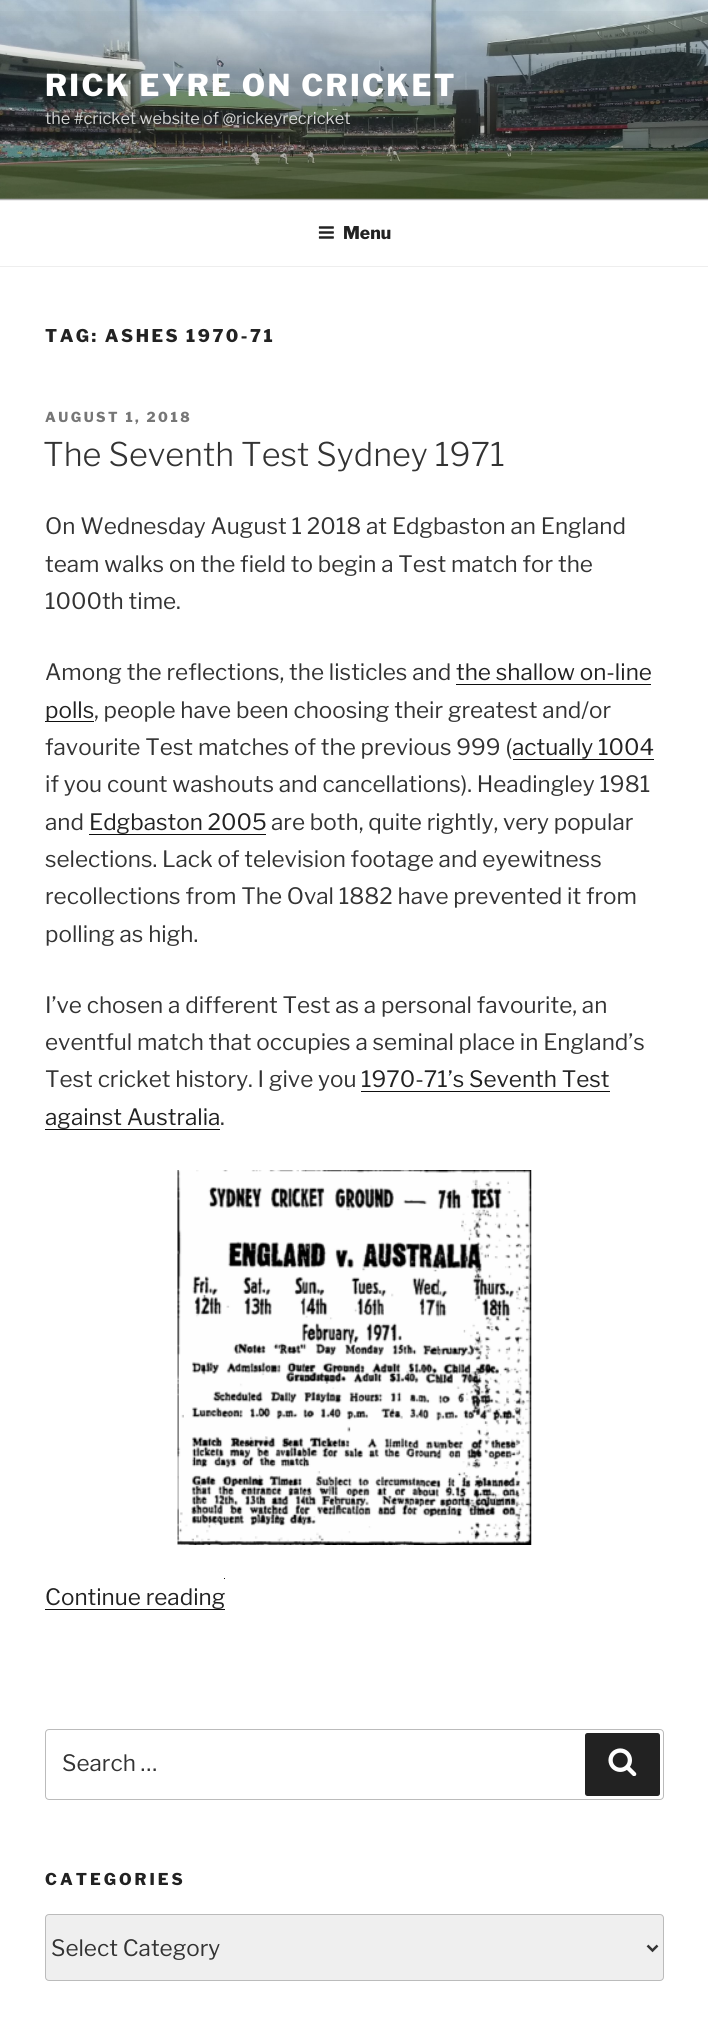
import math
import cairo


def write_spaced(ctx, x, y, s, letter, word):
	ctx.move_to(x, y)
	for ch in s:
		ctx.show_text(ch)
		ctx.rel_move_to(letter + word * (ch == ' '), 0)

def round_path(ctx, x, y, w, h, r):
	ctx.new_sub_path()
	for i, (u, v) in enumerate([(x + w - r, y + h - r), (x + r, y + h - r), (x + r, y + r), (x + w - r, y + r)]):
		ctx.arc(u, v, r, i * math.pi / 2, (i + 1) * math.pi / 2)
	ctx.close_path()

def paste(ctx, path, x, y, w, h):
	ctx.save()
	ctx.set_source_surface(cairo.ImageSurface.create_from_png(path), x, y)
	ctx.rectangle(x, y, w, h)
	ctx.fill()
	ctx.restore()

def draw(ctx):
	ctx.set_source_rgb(1, 1, 1)
	ctx.paint()
	ctx.set_source_rgb(0.98, 0.98, 0.98)
	ctx.rectangle(0, 198, 708, 2)
	ctx.fill()
	paste(ctx, 'media/1.png', 0, 0, 708, 199)
	gradient = cairo.LinearGradient(354, 0, 354, 200)
	gradient.add_color_stop_rgba(0, 0, 0, 0, 0)
	gradient.add_color_stop_rgba(0.75, 0, 0, 0, 0.3)
	gradient.add_color_stop_rgba(1, 0, 0, 0, 0.3)
	ctx.set_source(gradient)
	ctx.rectangle(0, 11, 708, 189)
	ctx.fill()
	ctx.select_font_face('Libre Franklin Thin')
	ctx.set_font_size(30)
	ctx.set_source_rgb(1, 1, 1)
	write_spaced(ctx, 45, 96, 'RICK EYRE ON CRICKET', 2.4, 0)
	ctx.select_font_face('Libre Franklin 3 Thin')
	ctx.set_font_size(16.25)
	ctx.set_source_rgb(0.835, 0.839, 0.835)
	ctx.move_to(45, 124)
	ctx.show_text('the #cricket website of @rickeyrecricket')
	ctx.set_source_rgb(0.933, 0.933, 0.933)
	ctx.rectangle(0, 200, 708, 1)
	ctx.fill()
	ctx.rectangle(0, 266, 708, 1)
	ctx.fill()
	paste(ctx, 'media/2.png', 318, 226, 16, 13)
	ctx.select_font_face('Libre Franklin Thin')
	ctx.set_font_size(17.5)
	ctx.set_source_rgb(0.133, 0.133, 0.133)
	ctx.move_to(343, 239)
	ctx.show_text('Menu')
	write_spaced(ctx, 45, 342, 'TAG: ASHES 1970-71', 2.5, 0)
	ctx.set_font_size(13.75)
	ctx.set_source_rgb(0.463, 0.463, 0.463)
	write_spaced(ctx, 45, 422, 'AUGUST 1, 2018', 2.5, 0)
	ctx.select_font_face('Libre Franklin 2 Thin')
	ctx.set_font_size(32.5)
	ctx.set_source_rgb(0.2, 0.2, 0.2)
	ctx.move_to(43, 466)
	ctx.show_text('The Seventh Test Sydney 1971')
	ctx.select_font_face('Libre Franklin 3 Thin')
	ctx.set_font_size(22.5)
	for x, y, s in [
		(45, 534, 'On Wednesday August 1 2018 at Edgbaston an England'),
		(45, 572, 'team walks on the field to begin a Test match for the'),
		(45, 609, '1000th time.'),
		(45, 680, 'Among the reflections, the listicles and'),
	]:
		ctx.move_to(x, y)
		ctx.show_text(s)
	ctx.set_source_rgb(0.133, 0.133, 0.133)
	ctx.move_to(456, 680)
	ctx.show_text('the shallow on-line')
	ctx.set_source_rgb(0.059, 0.059, 0.059)
	ctx.rectangle(456, 684, 195, 1)
	ctx.fill()
	ctx.rectangle(45, 721, 49, 1)
	ctx.fill()
	ctx.set_source_rgb(0.133, 0.133, 0.133)
	ctx.move_to(45, 718)
	ctx.show_text('polls')
	ctx.set_source_rgb(0.2, 0.2, 0.2)
	ctx.move_to(94, 718)
	ctx.show_text(', people have been choosing their greatest and/or')
	ctx.move_to(45, 755)
	ctx.show_text('favourite Test matches of the previous 999 (')
	ctx.set_source_rgb(0.133, 0.133, 0.133)
	ctx.move_to(512, 755)
	ctx.show_text('actually 1004')
	ctx.set_source_rgb(0.059, 0.059, 0.059)
	ctx.rectangle(513, 759, 141, 1)
	ctx.fill()
	ctx.set_source_rgb(0.2, 0.2, 0.2)
	ctx.move_to(45, 792)
	ctx.show_text('if you count washouts and cancellations). Headingley 1981')
	ctx.move_to(45, 830)
	ctx.show_text('and')
	ctx.set_source_rgb(0.133, 0.133, 0.133)
	ctx.move_to(89, 830)
	ctx.show_text('Edgbaston 2005')
	ctx.set_source_rgb(0.059, 0.059, 0.059)
	ctx.rectangle(89, 834, 177, 1)
	ctx.fill()
	ctx.set_source_rgb(0.2, 0.2, 0.2)
	for x, y, s in [
		(271, 830, 'are both, quite rightly, very popular'),
		(45, 867, 'selections. Lack of television footage and eyewitness'),
		(45, 904, 'recollections from The Oval 1882 have prevented it from'),
		(45, 942, 'polling as high.'),
		(45, 1013, 'I’ve chosen a different Test as a personal favourite, an'),
		(45, 1050, 'eventful match that occupies a seminal place in England’s'),
		(45, 1087, 'Test cricket history. I give you'),
	]:
		ctx.move_to(x, y)
		ctx.show_text(s)
	ctx.set_source_rgb(0.133, 0.133, 0.133)
	ctx.move_to(361, 1087)
	ctx.show_text('1970-71’s Seventh Test')
	ctx.set_source_rgb(0.059, 0.059, 0.059)
	ctx.rectangle(361, 1091, 249, 1)
	ctx.fill()
	ctx.set_source_rgb(0.133, 0.133, 0.133)
	ctx.move_to(45, 1125)
	ctx.show_text('against Australia')
	ctx.set_source_rgb(0.059, 0.059, 0.059)
	ctx.rectangle(45, 1129, 175, 1)
	ctx.fill()
	ctx.set_source_rgb(0.2, 0.2, 0.2)
	ctx.move_to(220, 1125)
	ctx.show_text('.')
	paste(ctx, 'media/3.png', 177, 1170, 355, 375)
	ctx.set_source_rgb(0.133, 0.133, 0.133)
	ctx.move_to(45, 1605)
	ctx.show_text('Continue reading')
	ctx.set_source_rgb(0.059, 0.059, 0.059)
	ctx.rectangle(45, 1609, 180, 1)
	ctx.fill()
	ctx.rectangle(224, 1578, 1, 1)
	ctx.fill()
	round_path(ctx, 45.5, 1729.5, 618, 70, 3.5)
	ctx.set_source_rgb(0.733, 0.733, 0.733)
	ctx.set_line_width(1)
	ctx.stroke()
	ctx.set_source_rgb(0.2, 0.2, 0.2)
	ctx.move_to(62, 1771)
	ctx.show_text('Search …')
	ctx.set_source_rgb(0.133, 0.133, 0.133)
	round_path(ctx, 585, 1733, 75, 63, 2.5)
	ctx.fill()
	paste(ctx, 'media/4.png', 608, 1748, 29, 28)
	ctx.select_font_face('Libre Franklin Thin')
	ctx.set_font_size(16.25)
	write_spaced(ctx, 45, 1885, 'CATEGORIES', 3, 0)
	ctx.set_source_rgb(0.937, 0.937, 0.937)
	round_path(ctx, 45.5, 1914.5, 618, 66, 3.5)
	ctx.fill_preserve()
	ctx.set_source_rgb(0.733, 0.733, 0.733)
	ctx.stroke()
	ctx.new_path()
	ctx.move_to(647.5, 1945.5)
	ctx.line_to(652.5, 1950.5)
	ctx.line_to(657.5, 1945.5)
	ctx.set_source_rgb(0.2, 0.2, 0.2)
	ctx.set_line_width(2.5)
	ctx.stroke()
	ctx.select_font_face('Libre Franklin 3 Thin')
	ctx.set_font_size(22.5)
	ctx.move_to(51, 1956)
	ctx.show_text('Select Category')


surface = cairo.ImageSurface(cairo.FORMAT_RGB24, 708, 2041)
ctx = cairo.Context(surface)
options = cairo.FontOptions()
options.set_hint_metrics(cairo.HINT_METRICS_OFF)
options.set_hint_style(cairo.HINT_STYLE_NONE)
ctx.set_font_options(options)
ctx.set_miter_limit(4)
draw(ctx)
surface.write_to_png('image.png')
